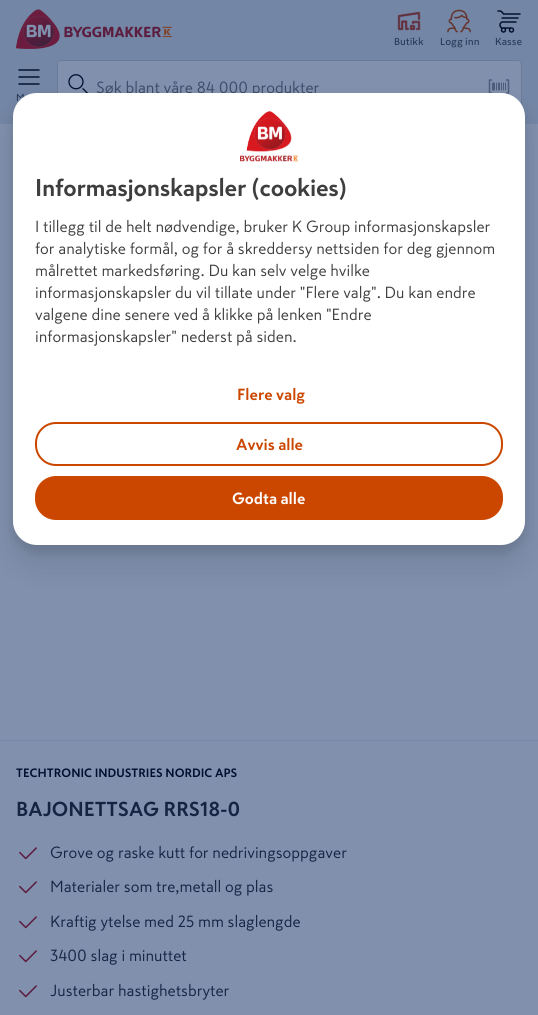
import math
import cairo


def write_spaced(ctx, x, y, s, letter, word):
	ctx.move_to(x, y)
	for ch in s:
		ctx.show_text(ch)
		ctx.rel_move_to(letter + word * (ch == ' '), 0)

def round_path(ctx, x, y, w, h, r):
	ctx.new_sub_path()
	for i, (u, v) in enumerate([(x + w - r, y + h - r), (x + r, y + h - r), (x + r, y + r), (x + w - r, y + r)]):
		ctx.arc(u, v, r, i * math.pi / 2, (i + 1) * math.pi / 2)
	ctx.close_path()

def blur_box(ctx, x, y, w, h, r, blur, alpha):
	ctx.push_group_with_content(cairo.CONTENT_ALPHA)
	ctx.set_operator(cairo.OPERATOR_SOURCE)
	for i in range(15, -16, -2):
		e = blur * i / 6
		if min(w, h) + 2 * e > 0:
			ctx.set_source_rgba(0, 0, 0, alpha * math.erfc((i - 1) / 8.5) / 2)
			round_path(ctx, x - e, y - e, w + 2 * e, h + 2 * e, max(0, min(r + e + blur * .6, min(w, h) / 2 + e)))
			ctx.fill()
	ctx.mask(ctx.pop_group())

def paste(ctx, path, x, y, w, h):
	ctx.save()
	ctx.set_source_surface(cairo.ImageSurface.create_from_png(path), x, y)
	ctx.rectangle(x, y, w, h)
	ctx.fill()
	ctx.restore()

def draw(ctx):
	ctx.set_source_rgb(0.502, 0.565, 0.678)
	ctx.paint()
	ctx.set_source_rgb(0.451, 0.525, 0.647)
	ctx.rectangle(0, 0, 538, 124)
	ctx.fill()
	paste(ctx, 'media/1.png', 16, 9, 156, 40)
	paste(ctx, 'media/2.png', 397, 11, 24, 20)
	ctx.select_font_face('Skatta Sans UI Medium')
	ctx.set_font_size(10)
	ctx.set_source_rgb(0.165, 0.235, 0.357)
	ctx.move_to(394, 45)
	ctx.show_text('Butikk')
	paste(ctx, 'media/3.png', 447, 9, 24, 24)
	ctx.move_to(440, 45)
	ctx.show_text('Logg inn')
	paste(ctx, 'media/4.png', 497, 10, 24, 23)
	ctx.move_to(495, 45)
	ctx.show_text('Kasse')
	paste(ctx, 'media/5.png', 18, 69, 22, 16)
	ctx.move_to(16, 101)
	ctx.show_text('M')
	ctx.set_source_rgb(0.502, 0.565, 0.678)
	round_path(ctx, 57.5, 60.5, 464, 49, 3.5)
	ctx.fill_preserve()
	ctx.set_source_rgb(0.416, 0.482, 0.6)
	ctx.set_line_width(1)
	ctx.stroke()
	paste(ctx, 'media/6.png', 68, 74, 20, 19)
	ctx.select_font_face('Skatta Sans')
	ctx.set_font_size(16)
	ctx.set_source_rgb(0.231, 0.294, 0.408)
	ctx.move_to(96, 93)
	ctx.show_text('Søk blant våre 84 000 produkter')
	paste(ctx, 'media/7.png', 488, 79, 22, 15)
	ctx.set_source_rgb(0.459, 0.522, 0.639)
	ctx.rectangle(0, 740, 538, 1)
	ctx.fill()
	ctx.select_font_face('Skatta Sans', cairo.FONT_SLANT_NORMAL, cairo.FONT_WEIGHT_BOLD)
	ctx.set_font_size(12)
	ctx.set_source_rgb(0, 0.063, 0.18)
	ctx.move_to(16, 777)
	ctx.show_text('TECHTRONIC INDUSTRIES NORDIC APS')
	ctx.set_font_size(20)
	ctx.set_source_rgb(0.082, 0.145, 0.259)
	ctx.move_to(16, 816)
	ctx.show_text('BAJONETTSAG RRS18-0')
	paste(ctx, 'media/8.png', 19, 847, 18, 13)
	ctx.select_font_face('Skatta Sans')
	ctx.set_font_size(16)
	ctx.move_to(50, 858)
	ctx.show_text('Grove og raske kutt for nedrivingsoppgaver')
	paste(ctx, 'media/8.png', 19, 881, 18, 13)
	ctx.move_to(50, 892)
	ctx.show_text('Materialer som tre,metall og plas')
	paste(ctx, 'media/8.png', 19, 916, 18, 13)
	ctx.move_to(50, 927)
	ctx.show_text('Kraftig ytelse med 25 mm slaglengde')
	paste(ctx, 'media/8.png', 19, 950, 18, 13)
	ctx.move_to(50, 961)
	ctx.show_text('3400 slag i minuttet')
	paste(ctx, 'media/8.png', 19, 985, 18, 13)
	ctx.move_to(50, 996)
	ctx.show_text('Justerbar hastighetsbryter')
	ctx.set_source_rgb(0, 0, 0)
	blur_box(ctx, 11, 111, 516, 456, 26, 16, 0.08)
	blur_box(ctx, 13, 101, 512, 452, 24, 6, 0.12)
	ctx.set_source_rgb(1, 1, 1)
	round_path(ctx, 13, 93, 512, 452, 24)
	ctx.fill()
	paste(ctx, 'media/9.png', 240, 111, 58, 51)
	ctx.select_font_face('Skatta Sans', cairo.FONT_SLANT_NORMAL, cairo.FONT_WEIGHT_BOLD)
	ctx.set_font_size(24)
	ctx.set_source_rgb(0.243, 0.243, 0.243)
	write_spaced(ctx, 35, 196, 'Informasjonskapsler (cookies)', -0.25, 0)
	ctx.select_font_face('Skatta Sans')
	ctx.set_font_size(16)
	for x, y, s in [
		(35, 232, 'I tillegg til de helt nødvendige, bruker K Group informasjonskapsler'),
		(35, 254, 'for analytiske formål, og for å skreddersy nettsiden for deg gjennom'),
		(35, 276, 'målrettet markedsføring. Du kan selv velge hvilke'),
		(35, 298, 'informasjonskapsler du vil tillate under "Flere valg". Du kan endre'),
		(35, 320, 'valgene dine senere ved å klikke på lenken "Endre'),
		(35, 342, 'informasjonskapsler" nederst på siden.'),
	]:
		ctx.move_to(x, y)
		ctx.show_text(s)
	ctx.select_font_face('Skatta Sans', cairo.FONT_SLANT_NORMAL, cairo.FONT_WEIGHT_BOLD)
	ctx.set_source_rgb(0.796, 0.278, 0)
	ctx.move_to(237, 400)
	ctx.show_text('Flere valg')
	round_path(ctx, 36, 423, 466, 42, 20)
	ctx.set_line_width(2)
	ctx.stroke()
	ctx.move_to(236, 450)
	ctx.show_text('Avvis alle')
	round_path(ctx, 36, 477, 466, 42, 20)
	ctx.fill_preserve()
	ctx.stroke()
	ctx.set_source_rgb(1, 1, 1)
	ctx.move_to(232, 504)
	ctx.show_text('Godta alle')


surface = cairo.ImageSurface(cairo.FORMAT_RGB24, 538, 1015)
ctx = cairo.Context(surface)
options = cairo.FontOptions()
options.set_hint_metrics(cairo.HINT_METRICS_OFF)
options.set_hint_style(cairo.HINT_STYLE_NONE)
ctx.set_font_options(options)
ctx.set_miter_limit(4)
draw(ctx)
surface.write_to_png('image.png')
